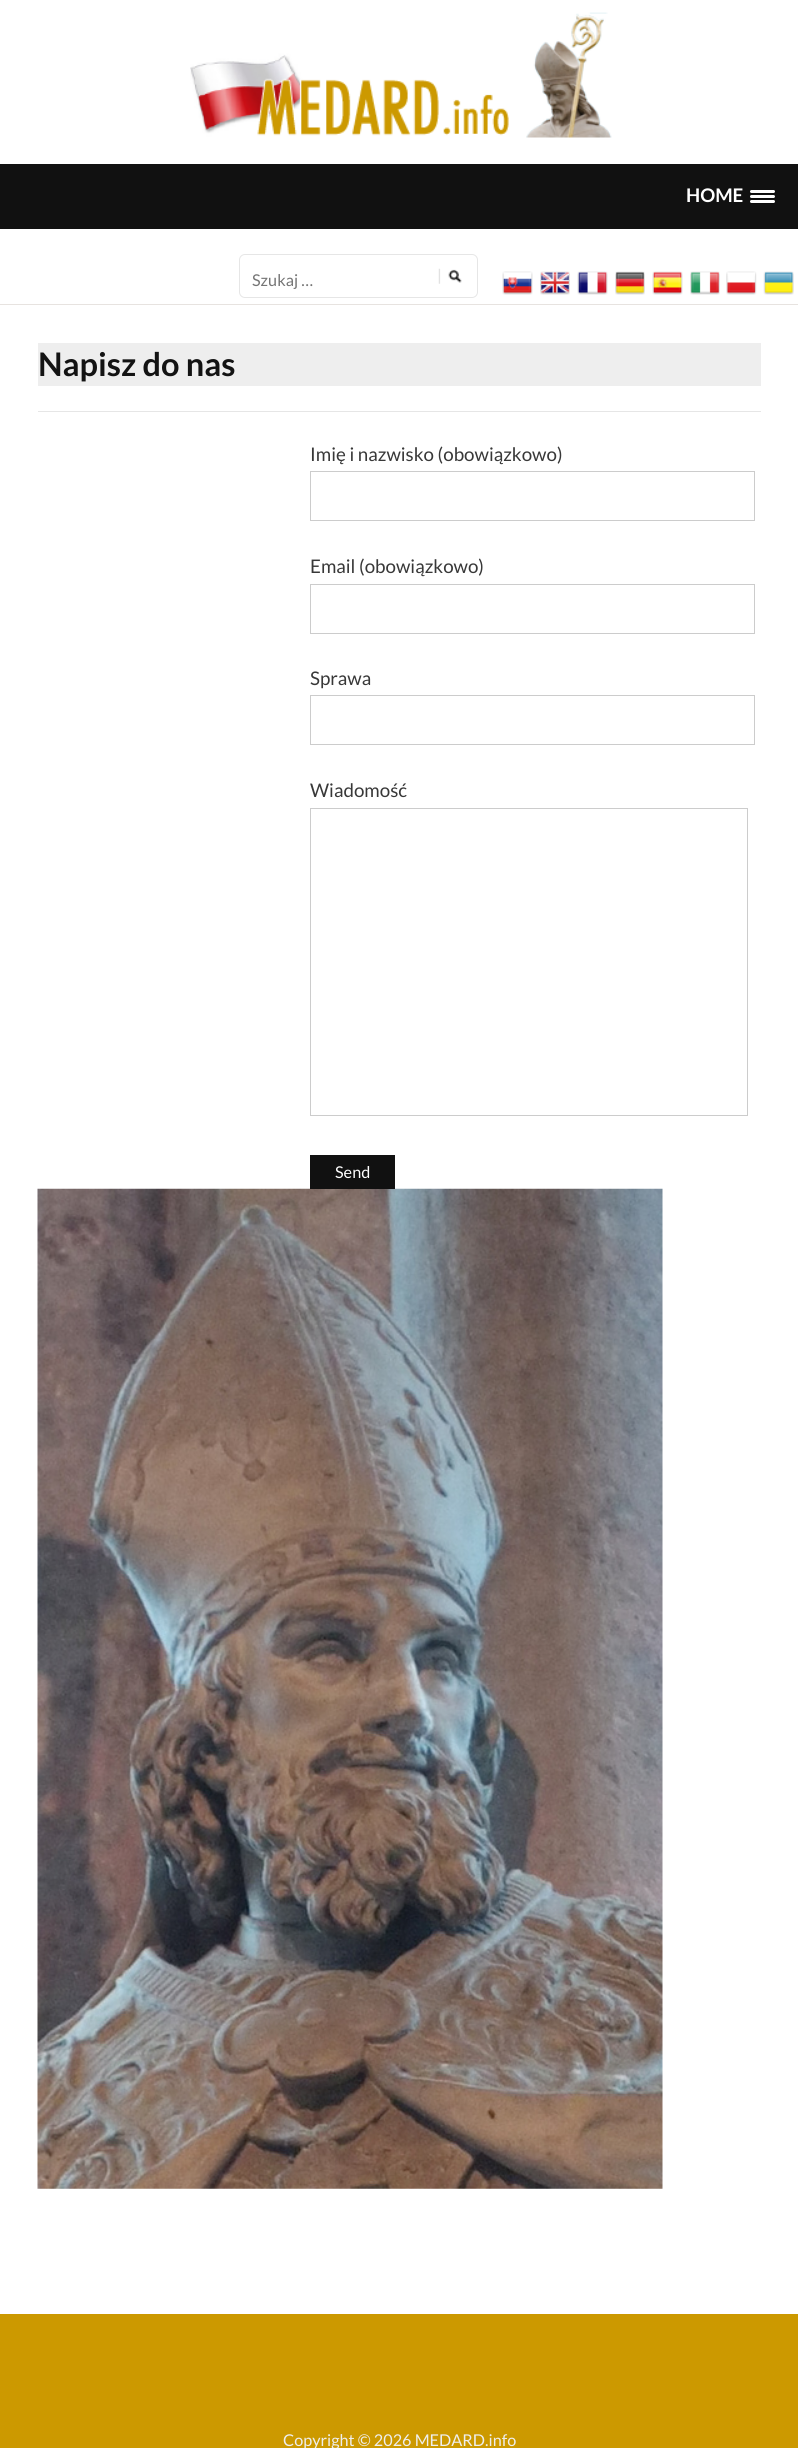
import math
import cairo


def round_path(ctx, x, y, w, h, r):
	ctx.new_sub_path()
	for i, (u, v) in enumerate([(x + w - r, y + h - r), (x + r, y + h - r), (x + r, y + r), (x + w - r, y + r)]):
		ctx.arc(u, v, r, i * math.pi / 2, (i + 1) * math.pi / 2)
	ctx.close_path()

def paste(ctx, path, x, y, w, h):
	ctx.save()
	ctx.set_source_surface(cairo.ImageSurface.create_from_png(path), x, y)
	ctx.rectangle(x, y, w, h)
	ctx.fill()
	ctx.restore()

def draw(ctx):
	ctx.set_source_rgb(1, 1, 1)
	ctx.paint()
	ctx.set_source_rgb(0.906, 0.89, 0.878)
	ctx.rectangle(0, 304, 798, 1)
	ctx.fill()
	paste(ctx, 'media/1.png', 190, 12, 422, 126)
	ctx.set_source_rgb(0.067, 0.067, 0.067)
	ctx.rectangle(0, 164, 798, 65)
	ctx.fill()
	ctx.select_font_face('Lato', cairo.FONT_SLANT_NORMAL, cairo.FONT_WEIGHT_BOLD)
	ctx.set_font_size(18.75)
	ctx.set_source_rgb(1, 1, 1)
	ctx.move_to(686, 202)
	ctx.show_text('HOME')
	ctx.set_source_rgb(0.051, 0.051, 0.051)
	ctx.new_path()
	ctx.move_to(750, 192)
	ctx.curve_to(749, 194.5, 754.5, 194, 755, 194)
	ctx.line_to(770, 194)
	ctx.curve_to(770.5, 194, 776, 194.5, 775, 192)
	ctx.line_to(774, 192.5)
	ctx.line_to(751, 192.5)
	ctx.close_path()
	ctx.fill()
	ctx.set_source_rgb(1, 1, 1)
	round_path(ctx, 750, 190, 25, 3, 1.5)
	ctx.fill()
	ctx.set_source_rgb(0.051, 0.051, 0.051)
	ctx.new_path()
	ctx.move_to(750, 197)
	ctx.curve_to(749, 199.5, 754.5, 199, 755, 199)
	ctx.line_to(770, 199)
	ctx.curve_to(770.5, 199, 776, 199.5, 775, 197)
	ctx.line_to(774, 197.5)
	ctx.line_to(751, 197.5)
	ctx.close_path()
	ctx.fill()
	ctx.set_source_rgb(1, 1, 1)
	round_path(ctx, 750, 195, 25, 3, 1.5)
	ctx.fill()
	ctx.set_source_rgb(0.051, 0.051, 0.051)
	ctx.new_path()
	ctx.move_to(750, 202)
	ctx.curve_to(749, 204.5, 754.5, 204, 755, 204)
	ctx.line_to(770, 204)
	ctx.curve_to(770.5, 204, 776, 204.5, 775, 202)
	ctx.line_to(774, 202.5)
	ctx.line_to(751, 202.5)
	ctx.close_path()
	ctx.fill()
	ctx.set_source_rgb(1, 1, 1)
	round_path(ctx, 750, 200, 25, 3, 1.5)
	ctx.fill()
	round_path(ctx, 239.5, 254.5, 238, 43, 5.5)
	ctx.set_source_rgb(0.902, 0.902, 0.902)
	ctx.set_line_width(1)
	ctx.stroke()
	ctx.select_font_face('Lato')
	ctx.set_font_size(16.25)
	ctx.set_source_rgb(0.459, 0.459, 0.459)
	ctx.move_to(252, 286)
	ctx.show_text('Szukaj …')
	paste(ctx, 'media/2.png', 438, 268, 24, 16)
	paste(ctx, 'media/3.png', 502, 271, 31, 24)
	paste(ctx, 'media/4.png', 540, 271, 30, 24)
	paste(ctx, 'media/5.png', 577, 271, 31, 24)
	paste(ctx, 'media/6.png', 615, 271, 30, 24)
	paste(ctx, 'media/7.png', 652, 271, 31, 24)
	paste(ctx, 'media/8.png', 690, 271, 30, 24)
	paste(ctx, 'media/9.png', 726, 271, 31, 24)
	paste(ctx, 'media/10.png', 763, 271, 31, 24)
	ctx.set_source_rgb(0.902, 0.902, 0.902)
	ctx.rectangle(38, 411, 723, 1)
	ctx.fill()
	ctx.set_source_rgb(0.933, 0.933, 0.933)
	ctx.rectangle(38, 343, 723, 43)
	ctx.fill()
	ctx.select_font_face('Lato', cairo.FONT_SLANT_NORMAL, cairo.FONT_WEIGHT_BOLD)
	ctx.set_font_size(32.5)
	ctx.set_source_rgb(0.075, 0.075, 0.075)
	ctx.move_to(38, 376)
	ctx.show_text('Napisz do nas')
	ctx.select_font_face('Lato')
	ctx.set_font_size(18.75)
	ctx.set_source_rgb(0.22, 0.22, 0.22)
	ctx.move_to(310, 461)
	ctx.show_text('Imię i nazwisko (obowiązkowo)')
	ctx.rectangle(310.5, 471.5, 444, 49)
	ctx.set_source_rgb(0.8, 0.8, 0.8)
	ctx.stroke()
	ctx.set_source_rgb(0.22, 0.22, 0.22)
	ctx.move_to(310, 573)
	ctx.show_text('Email (obowiązkowo)')
	ctx.rectangle(310.5, 584.5, 444, 49)
	ctx.set_source_rgb(0.8, 0.8, 0.8)
	ctx.stroke()
	ctx.set_source_rgb(0.22, 0.22, 0.22)
	ctx.move_to(310, 685)
	ctx.show_text('Sprawa')
	ctx.rectangle(310.5, 695.5, 444, 49)
	ctx.set_source_rgb(0.8, 0.8, 0.8)
	ctx.stroke()
	ctx.set_source_rgb(0.22, 0.22, 0.22)
	ctx.move_to(310, 797)
	ctx.show_text('Wiadomość')
	ctx.rectangle(310.5, 808.5, 437, 307)
	ctx.set_source_rgb(0.8, 0.8, 0.8)
	ctx.stroke()
	paste(ctx, 'media/11.png', 37, 1188, 626, 1001)
	ctx.set_source_rgb(0.067, 0.067, 0.067)
	ctx.rectangle(310, 1155, 85, 34)
	ctx.fill()
	ctx.set_font_size(16.25)
	ctx.set_source_rgb(1, 1, 1)
	ctx.move_to(335, 1178)
	ctx.show_text('Send')
	ctx.set_source_rgb(0.8, 0.6, 0)
	ctx.rectangle(0, 2314, 798, 134)
	ctx.fill()
	ctx.set_source_rgb(0.933, 0.933, 0.933)
	ctx.move_to(283, 2446)
	ctx.show_text('Copyright © 2026 MEDARD.info')


surface = cairo.ImageSurface(cairo.FORMAT_RGB24, 798, 2448)
ctx = cairo.Context(surface)
options = cairo.FontOptions()
options.set_hint_metrics(cairo.HINT_METRICS_OFF)
options.set_hint_style(cairo.HINT_STYLE_NONE)
ctx.set_font_options(options)
ctx.set_miter_limit(4)
draw(ctx)
surface.write_to_png('image.png')
